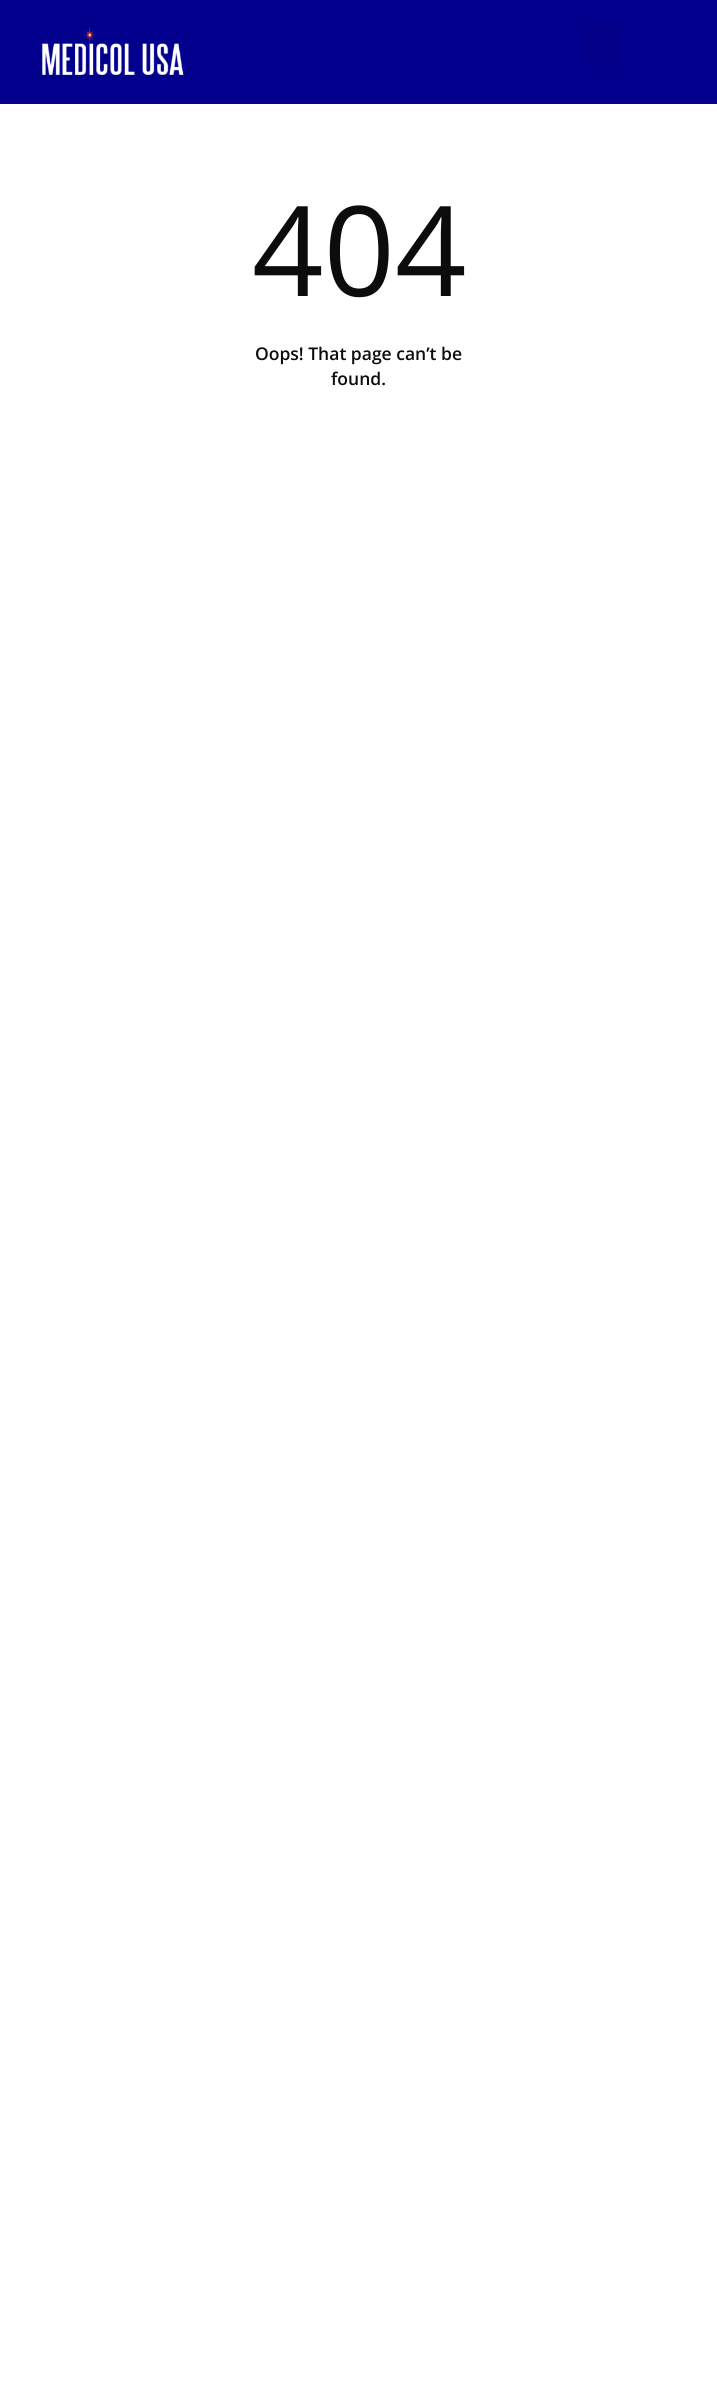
import math
import cairo


def round_path(ctx, x, y, w, h, r):
	ctx.new_sub_path()
	for i, (u, v) in enumerate([(x + w - r, y + h - r), (x + r, y + h - r), (x + r, y + r), (x + w - r, y + r)]):
		ctx.arc(u, v, r, i * math.pi / 2, (i + 1) * math.pi / 2)
	ctx.close_path()

def paste(ctx, path, x, y, w, h):
	ctx.save()
	ctx.set_source_surface(cairo.ImageSurface.create_from_png(path), x, y)
	ctx.rectangle(x, y, w, h)
	ctx.fill()
	ctx.restore()

def draw(ctx):
	ctx.set_source_rgb(1, 1, 1)
	ctx.paint()
	ctx.set_source_rgb(0.012, 0, 0.557)
	ctx.rectangle(0, 0, 717, 104)
	ctx.fill()
	paste(ctx, 'media/1.png', 42, 27, 142, 48)
	ctx.set_source_rgb(0.012, 0, 0.529)
	round_path(ctx, 584, 25, 35, 41, 4)
	ctx.fill()
	ctx.select_font_face('Open Sans')
	ctx.set_font_size(125)
	ctx.set_source_rgb(0.047, 0.047, 0.047)
	ctx.move_to(252, 296)
	ctx.show_text('404')
	ctx.select_font_face('Open Sans SemiBold')
	ctx.set_font_size(17.5)
	ctx.move_to(255, 360)
	ctx.show_text('Oops! That page can’t be')
	ctx.move_to(331, 385)
	ctx.show_text('found.')


surface = cairo.ImageSurface(cairo.FORMAT_RGB24, 717, 2392)
ctx = cairo.Context(surface)
options = cairo.FontOptions()
options.set_hint_metrics(cairo.HINT_METRICS_OFF)
options.set_hint_style(cairo.HINT_STYLE_NONE)
ctx.set_font_options(options)
ctx.set_miter_limit(4)
draw(ctx)
surface.write_to_png('image.png')
